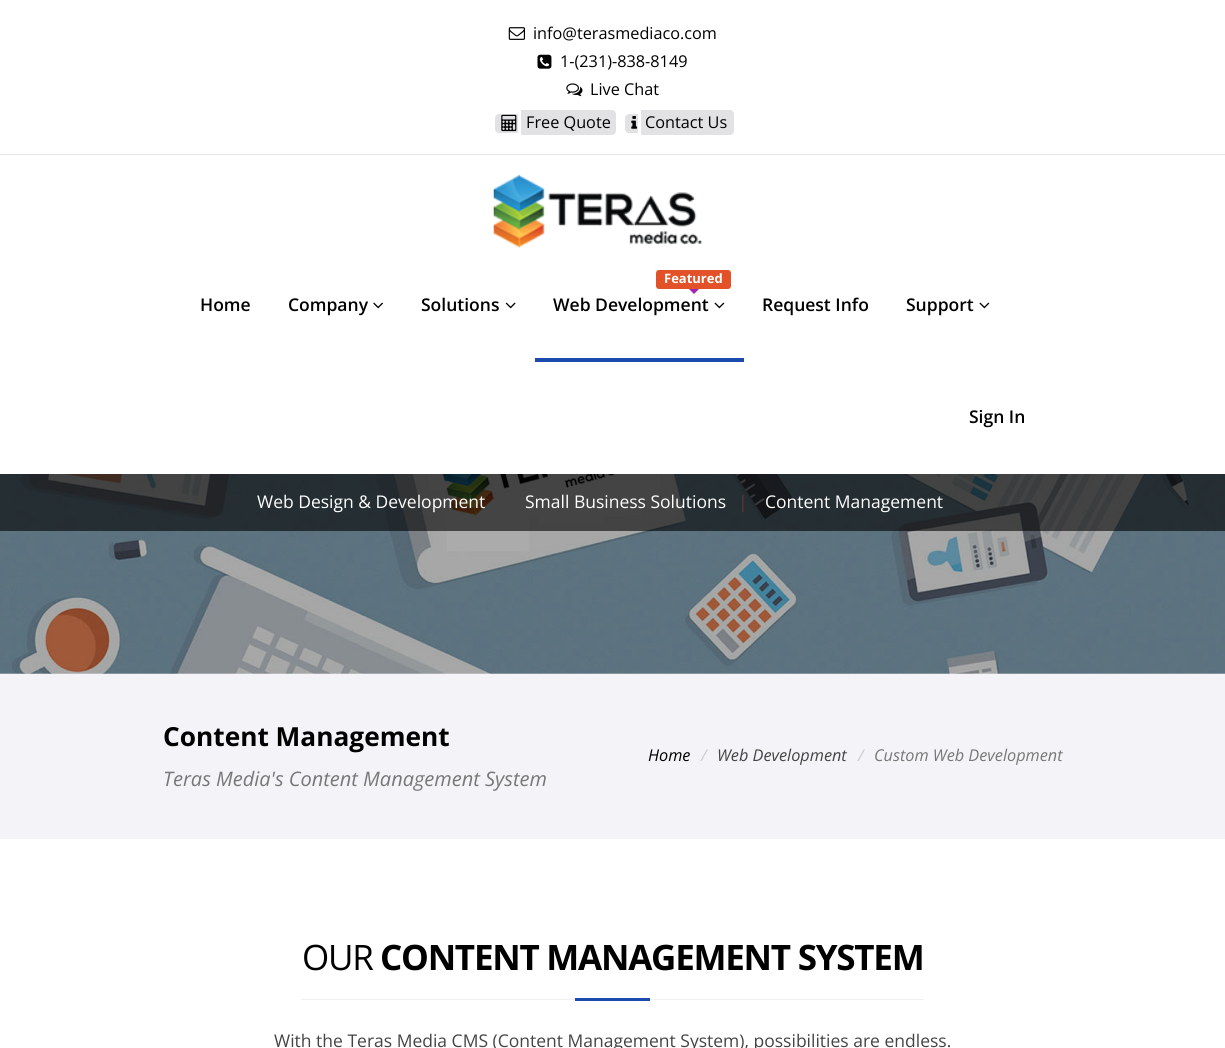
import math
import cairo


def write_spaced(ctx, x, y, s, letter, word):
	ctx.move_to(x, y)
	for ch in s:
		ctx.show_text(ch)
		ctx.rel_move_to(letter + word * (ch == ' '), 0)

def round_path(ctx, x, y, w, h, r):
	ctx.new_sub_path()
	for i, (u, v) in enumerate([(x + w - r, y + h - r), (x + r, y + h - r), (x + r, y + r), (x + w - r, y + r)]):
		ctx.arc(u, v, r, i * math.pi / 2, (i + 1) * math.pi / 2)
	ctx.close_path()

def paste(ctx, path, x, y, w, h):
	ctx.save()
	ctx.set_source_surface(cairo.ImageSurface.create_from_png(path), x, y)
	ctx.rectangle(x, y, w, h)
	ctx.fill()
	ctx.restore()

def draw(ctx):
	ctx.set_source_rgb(1, 1, 1)
	ctx.paint()
	ctx.set_source_rgb(0.91, 0.91, 0.91)
	ctx.rectangle(0, 154, 1225, 1)
	ctx.fill()
	paste(ctx, 'media/1.png', 508, 27, 17, 13)
	ctx.select_font_face('Open Sans')
	ctx.set_font_size(16.25)
	ctx.set_source_rgb(0, 0, 0)
	ctx.move_to(533, 39)
	ctx.show_text('info@terasmediaco.com')
	paste(ctx, 'media/2.png', 537, 54, 15, 15)
	ctx.move_to(560, 67)
	ctx.show_text('1-(231)-838-8149')
	paste(ctx, 'media/3.png', 566, 83, 17, 14)
	ctx.move_to(590, 95)
	ctx.show_text('Live Chat')
	ctx.set_source_rgb(0.886, 0.886, 0.898)
	ctx.new_path()
	ctx.move_to(499, 114)
	ctx.line_to(518, 114)
	ctx.line_to(518, 133)
	ctx.line_to(499, 133)
	ctx.curve_to(497, 133, 495, 131, 495, 129)
	ctx.line_to(495, 118)
	ctx.curve_to(495, 116, 497, 114, 499, 114)
	ctx.close_path()
	ctx.fill()
	ctx.new_path()
	ctx.move_to(521, 110)
	ctx.line_to(612, 110)
	ctx.curve_to(614, 110, 616, 112, 616, 114)
	ctx.line_to(616, 131)
	ctx.curve_to(616, 133, 614, 135, 612, 135)
	ctx.line_to(521, 135)
	ctx.close_path()
	ctx.fill()
	paste(ctx, 'media/4.png', 501, 114, 16, 18)
	ctx.set_source_rgb(0, 0, 0)
	ctx.move_to(526, 128)
	ctx.show_text('Free Quote')
	ctx.set_source_rgb(0.886, 0.886, 0.898)
	ctx.new_path()
	ctx.move_to(629, 114)
	ctx.line_to(638, 114)
	ctx.line_to(638, 133)
	ctx.line_to(629, 133)
	ctx.curve_to(627, 133, 625, 131, 625, 129)
	ctx.line_to(625, 118)
	ctx.curve_to(625, 116, 627, 114, 629, 114)
	ctx.close_path()
	ctx.fill()
	ctx.new_path()
	ctx.move_to(641, 110)
	ctx.line_to(730, 110)
	ctx.curve_to(732, 110, 734, 112, 734, 114)
	ctx.line_to(734, 131)
	ctx.curve_to(734, 133, 732, 135, 730, 135)
	ctx.line_to(641, 135)
	ctx.close_path()
	ctx.fill()
	paste(ctx, 'media/5.png', 631, 116, 7, 13)
	ctx.set_source_rgb(0, 0, 0)
	ctx.move_to(645, 128)
	ctx.show_text('Contact Us')
	paste(ctx, 'media/6.png', 493, 174, 209, 74)
	ctx.select_font_face('Open Sans SemiBold')
	ctx.set_font_size(17.5)
	ctx.move_to(200, 311)
	ctx.show_text('Home')
	ctx.move_to(288, 311)
	ctx.show_text('Company')
	paste(ctx, 'media/7.png', 373, 302, 10, 7)
	ctx.move_to(421, 311)
	ctx.show_text('Solutions')
	paste(ctx, 'media/8.png', 505, 302, 11, 7)
	ctx.set_source_rgb(0.114, 0.294, 0.678)
	ctx.rectangle(535, 358, 209, 4)
	ctx.fill()
	ctx.set_source_rgb(0.886, 0.318, 0.153)
	round_path(ctx, 656, 270, 75, 19, 3)
	ctx.fill()
	ctx.select_font_face('Open Sans', cairo.FONT_SLANT_NORMAL, cairo.FONT_WEIGHT_BOLD)
	ctx.set_font_size(13)
	ctx.set_source_rgb(1, 1, 1)
	ctx.move_to(664, 283)
	ctx.show_text('Featured')
	ctx.set_source_rgb(0.612, 0.153, 0.69)
	ctx.new_path()
	ctx.move_to(689, 289)
	ctx.line_to(699, 289)
	ctx.line_to(694, 294)
	ctx.close_path()
	ctx.fill()
	ctx.select_font_face('Open Sans SemiBold')
	ctx.set_font_size(17.5)
	ctx.set_source_rgb(0, 0, 0)
	ctx.move_to(553, 311)
	ctx.show_text('Web Development')
	paste(ctx, 'media/9.png', 714, 302, 11, 7)
	ctx.move_to(762, 311)
	ctx.show_text('Request Info')
	ctx.move_to(906, 311)
	ctx.show_text('Support')
	paste(ctx, 'media/9.png', 979, 302, 11, 7)
	ctx.move_to(969, 423)
	ctx.show_text('Sign In')
	paste(ctx, 'media/10.png', 0, 474, 1225, 200)
	ctx.set_source_rgba(0, 0, 0, 0.6)
	ctx.rectangle(0, 474, 1225, 57)
	ctx.fill()
	ctx.select_font_face('Open Sans')
	ctx.set_source_rgb(1, 1, 1)
	ctx.move_to(257, 508)
	ctx.show_text('Web Design & Development')
	ctx.move_to(525, 508)
	ctx.show_text('Small Business Solutions')
	ctx.set_source_rgb(0.369, 0.22, 0.184)
	ctx.move_to(738, 508)
	ctx.show_text('|')
	ctx.set_source_rgb(1, 1, 1)
	ctx.move_to(765, 508)
	ctx.show_text('Content Management')
	ctx.set_source_rgb(0.957, 0.957, 0.969)
	ctx.rectangle(0, 674, 1225, 165)
	ctx.fill()
	ctx.select_font_face('Open Sans', cairo.FONT_SLANT_NORMAL, cairo.FONT_WEIGHT_BOLD)
	ctx.set_font_size(26.25)
	ctx.set_source_rgb(0, 0, 0)
	ctx.move_to(163, 746)
	ctx.show_text('Content Management')
	ctx.select_font_face('Open Sans', cairo.FONT_SLANT_ITALIC)
	ctx.set_font_size(20)
	ctx.set_source_rgb(0.467, 0.467, 0.467)
	ctx.move_to(163, 786)
	ctx.show_text('Teras Media\'s Content Management System')
	ctx.set_font_size(16.25)
	ctx.set_source_rgb(0, 0, 0)
	ctx.move_to(648, 761)
	ctx.show_text('Home')
	ctx.set_source_rgb(0.8, 0.8, 0.8)
	ctx.move_to(701, 761)
	ctx.show_text('/')
	ctx.set_source_rgb(0.267, 0.267, 0.267)
	ctx.move_to(717, 761)
	ctx.show_text('Web Development')
	ctx.set_source_rgb(0.8, 0.8, 0.8)
	ctx.move_to(858, 761)
	ctx.show_text('/')
	ctx.set_source_rgb(0.467, 0.467, 0.467)
	ctx.move_to(874, 761)
	ctx.show_text('Custom Web Development')
	ctx.set_source_rgb(0.945, 0.945, 0.957)
	ctx.rectangle(301, 999, 623, 1)
	ctx.fill()
	ctx.select_font_face('Open Sans')
	ctx.set_font_size(35)
	ctx.set_source_rgb(0, 0, 0)
	write_spaced(ctx, 302, 970, 'OUR', -1.25, 0)
	ctx.select_font_face('Open Sans', cairo.FONT_SLANT_NORMAL, cairo.FONT_WEIGHT_BOLD)
	write_spaced(ctx, 380, 970, 'CONTENT MANAGEMENT SYSTEM', -1.25, 0)
	ctx.set_source_rgb(0.114, 0.294, 0.678)
	ctx.rectangle(575, 998, 75, 3)
	ctx.fill()
	ctx.select_font_face('Open Sans')
	ctx.set_font_size(17.5)
	ctx.set_source_rgb(0.267, 0.267, 0.267)
	ctx.move_to(274, 1047)
	ctx.show_text('With the Teras Media CMS (Content Management System), possibilities are endless.')


surface = cairo.ImageSurface(cairo.FORMAT_RGB24, 1225, 1048)
ctx = cairo.Context(surface)
options = cairo.FontOptions()
options.set_hint_metrics(cairo.HINT_METRICS_OFF)
options.set_hint_style(cairo.HINT_STYLE_NONE)
ctx.set_font_options(options)
ctx.set_miter_limit(4)
draw(ctx)
surface.write_to_png('image.png')
